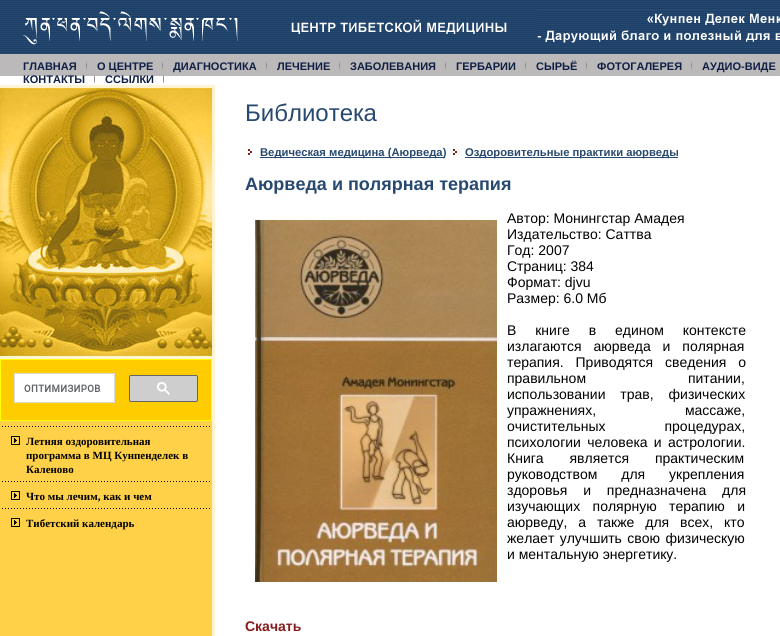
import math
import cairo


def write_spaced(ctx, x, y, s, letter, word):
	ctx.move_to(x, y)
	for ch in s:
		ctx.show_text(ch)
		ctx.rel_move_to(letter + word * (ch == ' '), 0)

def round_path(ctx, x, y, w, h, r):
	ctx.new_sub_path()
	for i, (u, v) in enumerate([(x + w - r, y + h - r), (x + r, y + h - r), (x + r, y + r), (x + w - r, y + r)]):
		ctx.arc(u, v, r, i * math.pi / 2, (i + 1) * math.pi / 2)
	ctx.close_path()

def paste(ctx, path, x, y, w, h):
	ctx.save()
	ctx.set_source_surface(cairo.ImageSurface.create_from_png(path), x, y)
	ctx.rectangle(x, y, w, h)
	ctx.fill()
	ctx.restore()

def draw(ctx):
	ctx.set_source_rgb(1, 1, 1)
	ctx.paint()
	paste(ctx, 'media/1.png', 0, 0, 780, 54)
	paste(ctx, 'media/2.png', 23, 11, 215, 34)
	paste(ctx, 'media/3.png', 291, 19, 216, 15)
	paste(ctx, 'media/4.png', 537, 10, 243, 33)
	ctx.set_source_rgb(0.733, 0.725, 0.729)
	ctx.rectangle(0, 54, 780, 22)
	ctx.fill()
	paste(ctx, 'media/5.png', 86, 61, 1, 9)
	ctx.select_font_face('Liberation Sans', cairo.FONT_SLANT_NORMAL, cairo.FONT_WEIGHT_BOLD)
	ctx.set_font_size(11)
	ctx.set_source_rgb(0.059, 0.122, 0.267)
	ctx.move_to(23, 70)
	ctx.show_text('ГЛАВНАЯ')
	paste(ctx, 'media/5.png', 162, 61, 1, 9)
	ctx.move_to(97, 70)
	ctx.show_text('О ЦЕНТРЕ')
	paste(ctx, 'media/5.png', 266, 61, 1, 9)
	ctx.move_to(173, 70)
	ctx.show_text('ДИАГНОСТИКА')
	paste(ctx, 'media/5.png', 339, 61, 1, 9)
	ctx.move_to(277, 70)
	ctx.show_text('ЛЕЧЕНИЕ')
	paste(ctx, 'media/5.png', 445, 61, 1, 9)
	ctx.move_to(350, 70)
	ctx.show_text('ЗАБОЛЕВАНИЯ')
	paste(ctx, 'media/5.png', 525, 61, 1, 9)
	ctx.move_to(456, 70)
	ctx.show_text('ГЕРБАРИИ')
	paste(ctx, 'media/5.png', 586, 61, 1, 9)
	ctx.move_to(536, 70)
	ctx.show_text('СЫРЬЁ')
	paste(ctx, 'media/5.png', 691, 61, 1, 9)
	ctx.move_to(597, 70)
	ctx.show_text('ФОТОГАЛЕРЕЯ')
	ctx.move_to(702, 70)
	ctx.show_text('АУДИО-ВИДЕ')
	paste(ctx, 'media/5.png', 94, 74, 1, 9)
	ctx.move_to(23, 83)
	ctx.show_text('КОНТАКТЫ')
	paste(ctx, 'media/5.png', 163, 74, 1, 9)
	ctx.move_to(105, 83)
	ctx.show_text('CСЫЛКИ')
	ctx.set_source_rgb(1, 0.82, 0.282)
	ctx.rectangle(0, 421, 212, 215)
	ctx.fill()
	ctx.set_source_rgb(1, 0.953, 0.82)
	ctx.rectangle(212, 85, 3, 551)
	ctx.rectangle(0, 85, 212, 3)
	ctx.fill()
	paste(ctx, 'media/6.png', 0, 88, 212, 268)
	ctx.rectangle(0, 356, 212, 3)
	ctx.fill()
	ctx.set_source_rgb(1, 0.8, 0)
	ctx.rectangle(0.5, 359.5, 211, 61)
	ctx.fill_preserve()
	ctx.set_source_rgb(1, 1, 0)
	ctx.set_line_width(1)
	ctx.stroke()
	ctx.set_source_rgb(1, 1, 1)
	ctx.rectangle(14.5, 373.5, 100, 29)
	ctx.fill_preserve()
	ctx.set_source_rgb(0.851, 0.851, 0.851)
	ctx.stroke()
	paste(ctx, 'media/7.png', 24, 384, 77, 8)
	ctx.set_source_rgb(0.808, 0.808, 0.808)
	round_path(ctx, 129.5, 375.5, 68, 26, 1.5)
	ctx.fill_preserve()
	ctx.set_source_rgb(0.4, 0.4, 0.4)
	ctx.stroke()
	paste(ctx, 'media/8.png', 157, 382, 13, 13)
	paste(ctx, 'media/9.png', 2, 426, 208, 19)
	ctx.select_font_face('Liberation Serif', cairo.FONT_SLANT_NORMAL, cairo.FONT_WEIGHT_BOLD)
	ctx.set_source_rgb(0, 0, 0)
	for x, y, s in [
		(26, 445, 'Летняя оздоровительная'),
		(26, 459, 'программа в МЦ Кунпенделек в'),
		(26, 473, 'Каленово'),
	]:
		ctx.move_to(x, y)
		ctx.show_text(s)
	paste(ctx, 'media/9.png', 2, 481, 208, 19)
	ctx.move_to(26, 500)
	ctx.show_text('Что мы лечим, как и чем')
	paste(ctx, 'media/9.png', 2, 508, 208, 19)
	ctx.move_to(26, 527)
	ctx.show_text('Тибетский календарь')
	ctx.select_font_face('Liberation Sans')
	ctx.set_font_size(24)
	ctx.set_source_rgb(0.157, 0.286, 0.435)
	ctx.move_to(245, 121)
	ctx.show_text('Библиотека')
	paste(ctx, 'media/10.png', 248, 149, 4, 6)
	ctx.rectangle(260, 157, 185, 1)
	ctx.fill()
	ctx.select_font_face('Liberation Sans', cairo.FONT_SLANT_NORMAL, cairo.FONT_WEIGHT_BOLD)
	ctx.set_font_size(11.25)
	ctx.move_to(260, 156)
	ctx.show_text('Ведическая медицина (Аюрведа)')
	paste(ctx, 'media/10.png', 453, 149, 4, 6)
	ctx.rectangle(465, 157, 213, 1)
	ctx.fill()
	ctx.move_to(465, 156)
	ctx.show_text('Оздоровительные практики аюрведы')
	ctx.set_font_size(18)
	ctx.move_to(245, 190)
	ctx.show_text('Аюрведа и полярная терапия')
	paste(ctx, 'media/11.png', 255, 220, 242, 362)
	ctx.select_font_face('Liberation Sans')
	ctx.set_font_size(14)
	ctx.set_source_rgb(0, 0, 0)
	for x, y, s in [
		(507, 223, 'Автор: Монингстар Амадея'),
		(507, 239, 'Издательство: Саттва'),
		(507, 255, 'Год: 2007'),
		(507, 271, 'Страниц: 384'),
		(507, 287, 'Формат: djvu'),
		(507, 303, 'Размер: 6.0 Мб'),
	]:
		ctx.move_to(x, y)
		ctx.show_text(s)
	write_spaced(ctx, 507, 335, 'В книге в едином контексте', 0, 15)
	write_spaced(ctx, 507, 351, 'излагаются аюрведа и полярная', 0, 8)
	write_spaced(ctx, 507, 367, 'терапия. Приводятся сведения о', 0, 8)
	write_spaced(ctx, 507, 383, 'правильном питании,', 0, 98)
	write_spaced(ctx, 507, 399, 'использовании трав, физических', 0, 11)
	write_spaced(ctx, 507, 415, 'упражнениях, массаже,', 0, 85)
	write_spaced(ctx, 507, 431, 'очистительных процедурах,', 0, 55)
	write_spaced(ctx, 507, 447, 'психологии человека и астрологии.', 0, 2.5)
	write_spaced(ctx, 507, 463, 'Книга является практическим', 0, 22)
	write_spaced(ctx, 507, 479, 'руководством для укрепления', 0, 20)
	write_spaced(ctx, 507, 495, 'здоровья и предназначена для', 0, 12)
	write_spaced(ctx, 507, 511, 'изучающих полярную терапию и', 0, 8.5)
	write_spaced(ctx, 507, 527, 'аюрведу, а также для всех, кто', 0, 7)
	write_spaced(ctx, 507, 543, 'желает улучшить свою физическую', 0, 1.5)
	ctx.move_to(507, 559)
	ctx.show_text('и ментальную энергетику.')
	ctx.select_font_face('Liberation Sans', cairo.FONT_SLANT_NORMAL, cairo.FONT_WEIGHT_BOLD)
	ctx.set_source_rgb(0.522, 0.114, 0.114)
	ctx.move_to(245, 631)
	ctx.show_text('Скачать')


surface = cairo.ImageSurface(cairo.FORMAT_RGB24, 780, 636)
ctx = cairo.Context(surface)
options = cairo.FontOptions()
options.set_hint_metrics(cairo.HINT_METRICS_OFF)
options.set_hint_style(cairo.HINT_STYLE_NONE)
ctx.set_font_options(options)
ctx.set_miter_limit(4)
draw(ctx)
surface.write_to_png('image.png')
